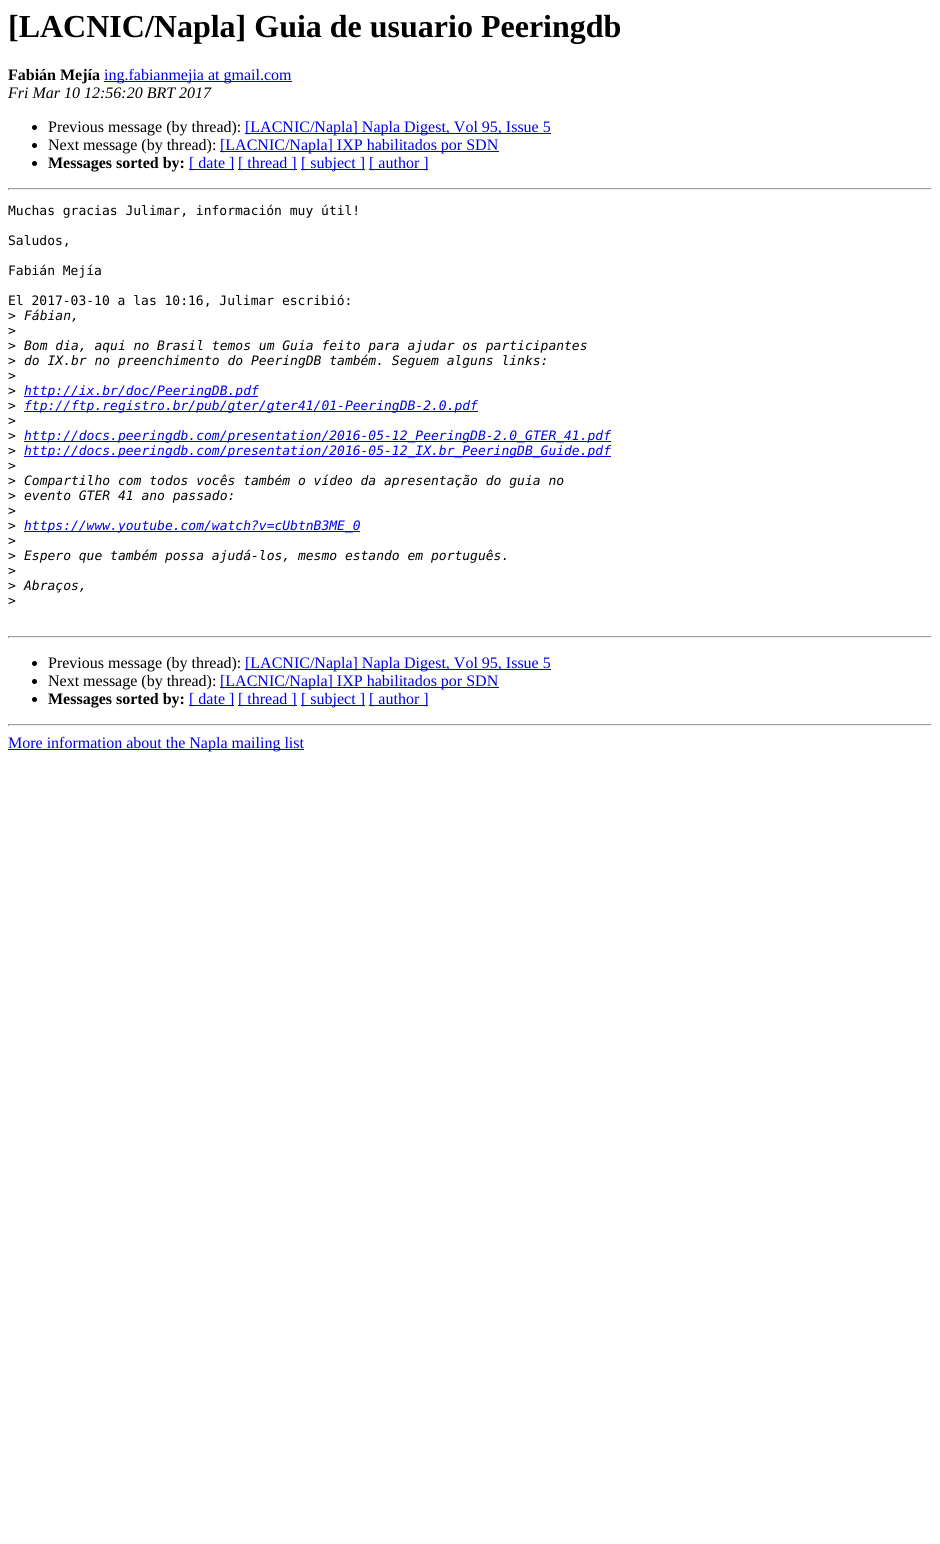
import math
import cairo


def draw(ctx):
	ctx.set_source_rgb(1, 1, 1)
	ctx.paint()
	ctx.select_font_face('Liberation Serif', cairo.FONT_SLANT_NORMAL, cairo.FONT_WEIGHT_BOLD)
	ctx.set_font_size(32)
	ctx.set_source_rgb(0, 0, 0)
	ctx.move_to(8, 37)
	ctx.show_text('[LACNIC/Napla] Guia de usuario Peeringdb')
	ctx.set_font_size(16)
	ctx.move_to(8, 80)
	ctx.show_text('Fabián Mejía')
	ctx.set_source_rgb(0, 0, 0.933)
	ctx.rectangle(104, 81, 188, 1)
	ctx.fill()
	ctx.select_font_face('Liberation Serif')
	ctx.move_to(104, 80)
	ctx.show_text('ing.fabianmejia at gmail.com')
	ctx.select_font_face('Liberation Serif', cairo.FONT_SLANT_ITALIC)
	ctx.set_source_rgb(0, 0, 0)
	ctx.move_to(8, 98)
	ctx.show_text('Fri Mar 10 12:56:20 BRT 2017')
	ctx.new_path()
	ctx.arc(34.5, 127.5, 2.5, 0, 2 * math.pi)
	ctx.fill()
	ctx.select_font_face('Liberation Serif')
	ctx.move_to(48, 132)
	ctx.show_text('Previous message (by thread):')
	ctx.set_source_rgb(0, 0, 0.933)
	ctx.rectangle(245, 133, 306, 1)
	ctx.fill()
	ctx.move_to(245, 132)
	ctx.show_text('[LACNIC/Napla] Napla Digest, Vol 95, Issue 5')
	ctx.set_source_rgb(0, 0, 0)
	ctx.new_path()
	ctx.arc(34.5, 145.5, 2.5, 0, 2 * math.pi)
	ctx.fill()
	ctx.move_to(48, 150)
	ctx.show_text('Next message (by thread):')
	ctx.set_source_rgb(0, 0, 0.933)
	ctx.rectangle(220, 151, 279, 1)
	ctx.fill()
	ctx.move_to(220, 150)
	ctx.show_text('[LACNIC/Napla] IXP habilitados por SDN')
	ctx.set_source_rgb(0, 0, 0)
	ctx.new_path()
	ctx.arc(34.5, 163.5, 2.5, 0, 2 * math.pi)
	ctx.fill()
	ctx.select_font_face('Liberation Serif', cairo.FONT_SLANT_NORMAL, cairo.FONT_WEIGHT_BOLD)
	ctx.move_to(48, 168)
	ctx.show_text('Messages sorted by:')
	ctx.set_source_rgb(0, 0, 0.933)
	ctx.rectangle(189, 169, 45, 1)
	ctx.fill()
	ctx.select_font_face('Liberation Serif')
	ctx.move_to(189, 168)
	ctx.show_text('[ date ]')
	ctx.rectangle(238, 169, 59, 1)
	ctx.fill()
	ctx.move_to(238, 168)
	ctx.show_text('[ thread ]')
	ctx.rectangle(301, 169, 64, 1)
	ctx.fill()
	ctx.move_to(301, 168)
	ctx.show_text('[ subject ]')
	ctx.rectangle(369, 169, 59, 1)
	ctx.fill()
	ctx.move_to(369, 168)
	ctx.show_text('[ author ]')
	ctx.set_source_rgb(0.624, 0.624, 0.624)
	ctx.rectangle(8, 188, 924, 1)
	ctx.fill()
	ctx.set_source_rgb(0.933, 0.933, 0.933)
	ctx.rectangle(931, 188, 1, 2)
	ctx.rectangle(8, 189, 924, 1)
	ctx.fill()
	ctx.set_source_rgb(0.624, 0.624, 0.624)
	ctx.rectangle(8, 188, 1, 2)
	ctx.fill()
	ctx.select_font_face('DejaVu Sans Mono')
	ctx.set_font_size(13)
	ctx.set_source_rgb(0, 0, 0)
	for x, y, s in [
		(8, 215, 'Muchas gracias Julimar, información muy útil!'),
		(8, 245, 'Saludos,'),
		(8, 275, 'Fabián Mejía'),
		(8, 305, 'El 2017-03-10 a las 10:16, Julimar escribió:'),
		(8, 320, '>'),
	]:
		ctx.move_to(x, y)
		ctx.show_text(s)
	ctx.select_font_face('DejaVu Sans Mono', cairo.FONT_SLANT_ITALIC)
	ctx.move_to(24, 320)
	ctx.show_text('Fábian,')
	ctx.select_font_face('DejaVu Sans Mono')
	ctx.move_to(8, 335)
	ctx.show_text('>')
	ctx.move_to(8, 350)
	ctx.show_text('>')
	ctx.select_font_face('DejaVu Sans Mono', cairo.FONT_SLANT_ITALIC)
	ctx.move_to(24, 350)
	ctx.show_text('Bom dia, aqui no Brasil temos um Guia feito para ajudar os participantes')
	ctx.select_font_face('DejaVu Sans Mono')
	ctx.move_to(8, 365)
	ctx.show_text('>')
	ctx.select_font_face('DejaVu Sans Mono', cairo.FONT_SLANT_ITALIC)
	ctx.move_to(24, 365)
	ctx.show_text('do IX.br no preenchimento do PeeringDB também. Seguem alguns links:')
	ctx.select_font_face('DejaVu Sans Mono')
	ctx.move_to(8, 380)
	ctx.show_text('>')
	ctx.move_to(8, 395)
	ctx.show_text('>')
	ctx.set_source_rgb(0, 0, 0.933)
	ctx.rectangle(24, 396, 234, 1)
	ctx.fill()
	ctx.select_font_face('DejaVu Sans Mono', cairo.FONT_SLANT_ITALIC)
	ctx.move_to(24, 395)
	ctx.show_text('http://ix.br/doc/PeeringDB.pdf')
	ctx.select_font_face('DejaVu Sans Mono')
	ctx.set_source_rgb(0, 0, 0)
	ctx.move_to(8, 410)
	ctx.show_text('>')
	ctx.set_source_rgb(0, 0, 0.933)
	ctx.rectangle(24, 411, 454, 1)
	ctx.fill()
	ctx.select_font_face('DejaVu Sans Mono', cairo.FONT_SLANT_ITALIC)
	ctx.move_to(24, 410)
	ctx.show_text('ftp://ftp.registro.br/pub/gter/gter41/01-PeeringDB-2.0.pdf')
	ctx.select_font_face('DejaVu Sans Mono')
	ctx.set_source_rgb(0, 0, 0)
	ctx.move_to(8, 425)
	ctx.show_text('>')
	ctx.move_to(8, 440)
	ctx.show_text('>')
	ctx.set_source_rgb(0, 0, 0.933)
	ctx.rectangle(24, 441, 587, 1)
	ctx.fill()
	ctx.select_font_face('DejaVu Sans Mono', cairo.FONT_SLANT_ITALIC)
	ctx.move_to(24, 440)
	ctx.show_text('http://docs.peeringdb.com/presentation/2016-05-12_PeeringDB-2.0_GTER_41.pdf')
	ctx.select_font_face('DejaVu Sans Mono')
	ctx.set_source_rgb(0, 0, 0)
	ctx.move_to(8, 455)
	ctx.show_text('>')
	ctx.set_source_rgb(0, 0, 0.933)
	ctx.rectangle(24, 456, 587, 1)
	ctx.fill()
	ctx.select_font_face('DejaVu Sans Mono', cairo.FONT_SLANT_ITALIC)
	ctx.move_to(24, 455)
	ctx.show_text('http://docs.peeringdb.com/presentation/2016-05-12_IX.br_PeeringDB_Guide.pdf')
	ctx.select_font_face('DejaVu Sans Mono')
	ctx.set_source_rgb(0, 0, 0)
	ctx.move_to(8, 470)
	ctx.show_text('>')
	ctx.move_to(8, 485)
	ctx.show_text('>')
	ctx.select_font_face('DejaVu Sans Mono', cairo.FONT_SLANT_ITALIC)
	ctx.move_to(24, 485)
	ctx.show_text('Compartilho com todos vocês também o vídeo da apresentação do guia no')
	ctx.select_font_face('DejaVu Sans Mono')
	ctx.move_to(8, 500)
	ctx.show_text('>')
	ctx.select_font_face('DejaVu Sans Mono', cairo.FONT_SLANT_ITALIC)
	ctx.move_to(24, 500)
	ctx.show_text('evento GTER 41 ano passado:')
	ctx.select_font_face('DejaVu Sans Mono')
	ctx.move_to(8, 515)
	ctx.show_text('>')
	ctx.move_to(8, 530)
	ctx.show_text('>')
	ctx.set_source_rgb(0, 0, 0.933)
	ctx.rectangle(24, 531, 336, 1)
	ctx.fill()
	ctx.select_font_face('DejaVu Sans Mono', cairo.FONT_SLANT_ITALIC)
	ctx.move_to(24, 530)
	ctx.show_text('https://www.youtube.com/watch?v=cUbtnB3ME_0')
	ctx.select_font_face('DejaVu Sans Mono')
	ctx.set_source_rgb(0, 0, 0)
	ctx.move_to(8, 545)
	ctx.show_text('>')
	ctx.move_to(8, 560)
	ctx.show_text('>')
	ctx.select_font_face('DejaVu Sans Mono', cairo.FONT_SLANT_ITALIC)
	ctx.move_to(24, 560)
	ctx.show_text('Espero que também possa ajudá-los, mesmo estando em português.')
	ctx.select_font_face('DejaVu Sans Mono')
	ctx.move_to(8, 575)
	ctx.show_text('>')
	ctx.move_to(8, 590)
	ctx.show_text('>')
	ctx.select_font_face('DejaVu Sans Mono', cairo.FONT_SLANT_ITALIC)
	ctx.move_to(24, 590)
	ctx.show_text('Abraços,')
	ctx.select_font_face('DejaVu Sans Mono')
	ctx.move_to(8, 605)
	ctx.show_text('>')
	ctx.set_source_rgb(0.624, 0.624, 0.624)
	ctx.rectangle(8, 636, 924, 1)
	ctx.fill()
	ctx.set_source_rgb(0.933, 0.933, 0.933)
	ctx.rectangle(931, 636, 1, 2)
	ctx.rectangle(8, 637, 924, 1)
	ctx.fill()
	ctx.set_source_rgb(0.624, 0.624, 0.624)
	ctx.rectangle(8, 636, 1, 2)
	ctx.fill()
	ctx.set_source_rgb(0, 0, 0)
	ctx.arc(34.5, 663.5, 2.5, 0, 2 * math.pi)
	ctx.fill()
	ctx.select_font_face('Liberation Serif')
	ctx.set_font_size(16)
	ctx.move_to(48, 668)
	ctx.show_text('Previous message (by thread):')
	ctx.set_source_rgb(0, 0, 0.933)
	ctx.rectangle(245, 669, 306, 1)
	ctx.fill()
	ctx.move_to(245, 668)
	ctx.show_text('[LACNIC/Napla] Napla Digest, Vol 95, Issue 5')
	ctx.set_source_rgb(0, 0, 0)
	ctx.new_path()
	ctx.arc(34.5, 681.5, 2.5, 0, 2 * math.pi)
	ctx.fill()
	ctx.move_to(48, 686)
	ctx.show_text('Next message (by thread):')
	ctx.set_source_rgb(0, 0, 0.933)
	ctx.rectangle(220, 687, 279, 1)
	ctx.fill()
	ctx.move_to(220, 686)
	ctx.show_text('[LACNIC/Napla] IXP habilitados por SDN')
	ctx.set_source_rgb(0, 0, 0)
	ctx.new_path()
	ctx.arc(34.5, 699.5, 2.5, 0, 2 * math.pi)
	ctx.fill()
	ctx.select_font_face('Liberation Serif', cairo.FONT_SLANT_NORMAL, cairo.FONT_WEIGHT_BOLD)
	ctx.move_to(48, 704)
	ctx.show_text('Messages sorted by:')
	ctx.set_source_rgb(0, 0, 0.933)
	ctx.rectangle(189, 705, 45, 1)
	ctx.fill()
	ctx.select_font_face('Liberation Serif')
	ctx.move_to(189, 704)
	ctx.show_text('[ date ]')
	ctx.rectangle(238, 705, 59, 1)
	ctx.fill()
	ctx.move_to(238, 704)
	ctx.show_text('[ thread ]')
	ctx.rectangle(301, 705, 64, 1)
	ctx.fill()
	ctx.move_to(301, 704)
	ctx.show_text('[ subject ]')
	ctx.rectangle(369, 705, 59, 1)
	ctx.fill()
	ctx.move_to(369, 704)
	ctx.show_text('[ author ]')
	ctx.set_source_rgb(0.624, 0.624, 0.624)
	ctx.rectangle(8, 724, 924, 1)
	ctx.fill()
	ctx.set_source_rgb(0.933, 0.933, 0.933)
	ctx.rectangle(931, 724, 1, 2)
	ctx.rectangle(8, 725, 924, 1)
	ctx.fill()
	ctx.set_source_rgb(0.624, 0.624, 0.624)
	ctx.rectangle(8, 724, 1, 2)
	ctx.fill()
	ctx.set_source_rgb(0, 0, 0.933)
	ctx.rectangle(8, 749, 296, 1)
	ctx.fill()
	ctx.move_to(8, 748)
	ctx.show_text('More information about the Napla mailing list')


surface = cairo.ImageSurface(cairo.FORMAT_RGB24, 940, 1544)
ctx = cairo.Context(surface)
options = cairo.FontOptions()
options.set_hint_metrics(cairo.HINT_METRICS_OFF)
options.set_hint_style(cairo.HINT_STYLE_NONE)
ctx.set_font_options(options)
ctx.set_miter_limit(4)
draw(ctx)
surface.write_to_png('image.png')
